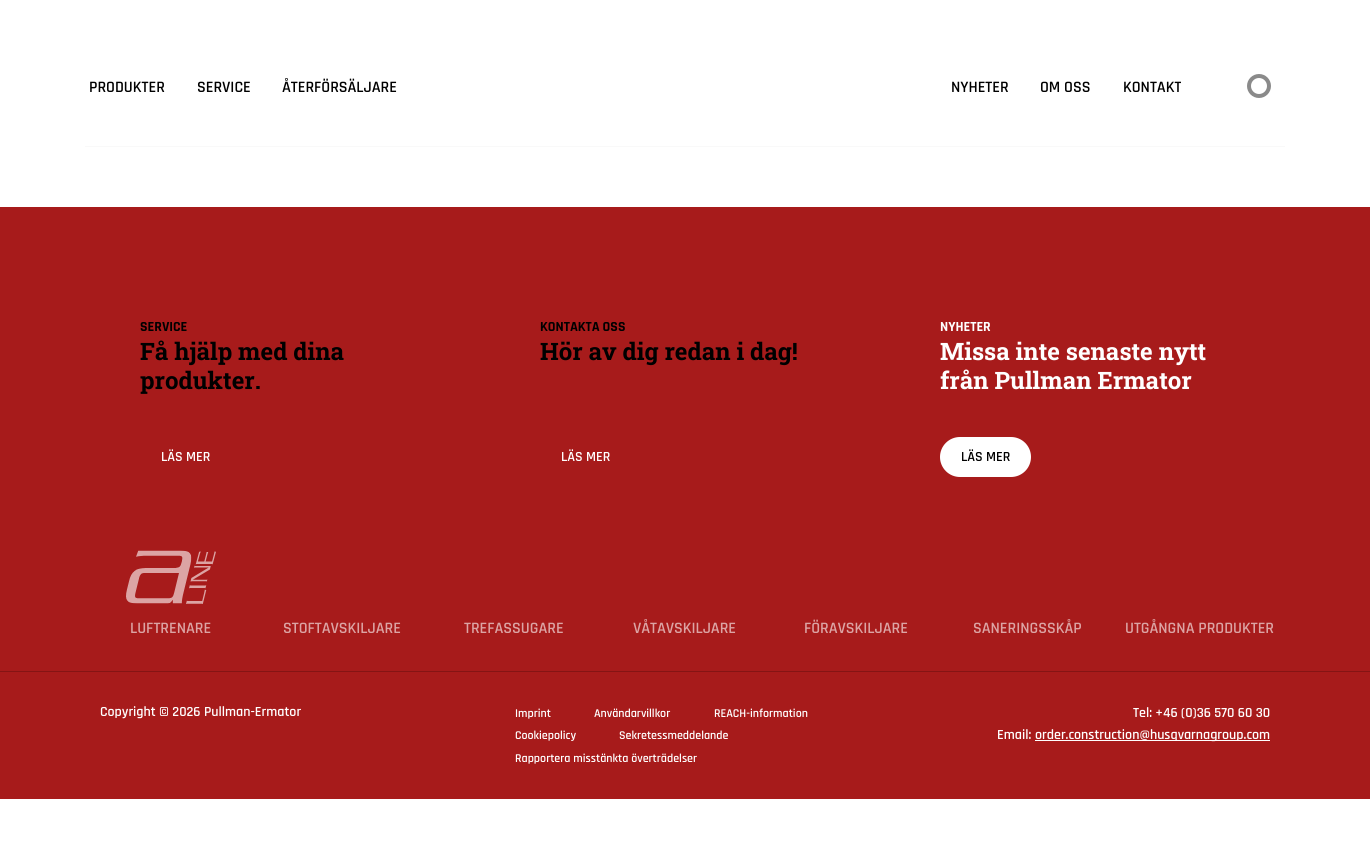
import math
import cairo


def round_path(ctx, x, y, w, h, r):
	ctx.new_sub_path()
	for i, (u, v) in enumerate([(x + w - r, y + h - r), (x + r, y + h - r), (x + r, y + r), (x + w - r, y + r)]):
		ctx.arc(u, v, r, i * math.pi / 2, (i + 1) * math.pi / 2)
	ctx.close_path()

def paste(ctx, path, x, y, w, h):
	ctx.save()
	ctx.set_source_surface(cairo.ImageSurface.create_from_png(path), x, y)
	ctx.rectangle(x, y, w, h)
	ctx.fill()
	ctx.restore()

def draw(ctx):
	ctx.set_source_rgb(1, 1, 1)
	ctx.paint()
	ctx.select_font_face('Rajdhani SemiBold')
	ctx.set_font_size(16)
	ctx.set_source_rgb(0, 0, 0)
	for x, y, s in [
		(89, 92, 'PRODUKTER'),
		(197, 92, 'SERVICE'),
		(282, 92, 'ÅTERFÖRSÄLJARE'),
		(951, 92, 'NYHETER'),
		(1040, 92, 'OM OSS'),
		(1123, 92, 'KONTAKT'),
	]:
		ctx.move_to(x, y)
		ctx.show_text(s)
	ctx.new_path()
	ctx.arc(1259, 86, 10, 0, 2 * math.pi)
	ctx.set_source_rgb(0.541, 0.541, 0.541)
	ctx.set_line_width(4)
	ctx.stroke()
	ctx.set_source_rgb(0.973, 0.973, 0.973)
	ctx.rectangle(85, 146, 1200, 1)
	ctx.fill()
	ctx.set_source_rgb(0.655, 0.106, 0.106)
	ctx.rectangle(0, 207, 1370, 592)
	ctx.fill()
	ctx.select_font_face('Rajdhani', cairo.FONT_SLANT_NORMAL, cairo.FONT_WEIGHT_BOLD)
	ctx.set_font_size(14)
	ctx.set_source_rgb(0, 0, 0)
	ctx.move_to(140, 331)
	ctx.show_text('SERVICE')
	ctx.select_font_face('Roboto Slab', cairo.FONT_SLANT_NORMAL, cairo.FONT_WEIGHT_BOLD)
	ctx.set_font_size(24)
	ctx.move_to(140, 360)
	ctx.show_text('Få hjälp med dina')
	ctx.move_to(140, 389)
	ctx.show_text('produkter.')
	ctx.select_font_face('Rajdhani SemiBold')
	ctx.set_font_size(14)
	ctx.set_source_rgb(1, 1, 1)
	ctx.move_to(161, 461)
	ctx.show_text('LÄS MER')
	ctx.select_font_face('Rajdhani', cairo.FONT_SLANT_NORMAL, cairo.FONT_WEIGHT_BOLD)
	ctx.set_source_rgb(0, 0, 0)
	ctx.move_to(540, 331)
	ctx.show_text('KONTAKTA OSS')
	ctx.select_font_face('Roboto Slab', cairo.FONT_SLANT_NORMAL, cairo.FONT_WEIGHT_BOLD)
	ctx.set_font_size(24)
	ctx.move_to(540, 360)
	ctx.show_text('Hör av dig redan i dag!')
	ctx.select_font_face('Rajdhani SemiBold')
	ctx.set_font_size(14)
	ctx.set_source_rgb(1, 1, 1)
	ctx.move_to(561, 461)
	ctx.show_text('LÄS MER')
	ctx.select_font_face('Rajdhani', cairo.FONT_SLANT_NORMAL, cairo.FONT_WEIGHT_BOLD)
	ctx.move_to(940, 331)
	ctx.show_text('NYHETER')
	ctx.select_font_face('Roboto Slab', cairo.FONT_SLANT_NORMAL, cairo.FONT_WEIGHT_BOLD)
	ctx.set_font_size(24)
	ctx.move_to(940, 360)
	ctx.show_text('Missa inte senaste nytt')
	ctx.move_to(940, 389)
	ctx.show_text('från Pullman Ermator')
	round_path(ctx, 940, 437, 91, 40, 20)
	ctx.fill()
	ctx.select_font_face('Rajdhani SemiBold')
	ctx.set_font_size(14)
	ctx.set_source_rgb(0, 0, 0)
	ctx.move_to(961, 461)
	ctx.show_text('LÄS MER')
	paste(ctx, 'media/1.png', 126, 550, 90, 54)
	ctx.set_font_size(16)
	ctx.set_source_rgb(0.863, 0.643, 0.643)
	for x, y, s in [
		(130, 633, 'LUFTRENARE'),
		(283, 633, 'STOFTAVSKILJARE'),
		(464, 633, 'TREFASSUGARE'),
		(633, 633, 'VÅTAVSKILJARE'),
		(804, 633, 'FÖRAVSKILJARE'),
		(973, 633, 'SANERINGSSKÅP'),
		(1125, 633, 'UTGÅNGNA PRODUKTER'),
	]:
		ctx.move_to(x, y)
		ctx.show_text(s)
	ctx.set_source_rgb(0.522, 0.082, 0.082)
	ctx.rectangle(0, 671, 1370, 1)
	ctx.fill()
	ctx.set_font_size(14)
	ctx.set_source_rgb(1, 1, 1)
	ctx.move_to(100, 716)
	ctx.show_text('Copyright © 2026 Pullman-Ermator')
	ctx.set_font_size(12)
	for x, y, s in [
		(515, 717, 'Imprint'),
		(594, 717, 'Användarvillkor'),
		(714, 717, 'REACH-information'),
		(515, 739, 'Cookiepolicy'),
		(619, 739, 'Sekretessmeddelande'),
		(515, 762, 'Rapportera misstänkta överträdelser'),
	]:
		ctx.move_to(x, y)
		ctx.show_text(s)
	ctx.set_font_size(14)
	ctx.move_to(1133, 717)
	ctx.show_text('Tel: +46 (0)36 570 60 30')
	ctx.move_to(997, 739)
	ctx.show_text('Email:')
	ctx.rectangle(1035, 740, 235, 1)
	ctx.fill()
	ctx.move_to(1035, 739)
	ctx.show_text('order.construction@husqvarnagroup.com')


surface = cairo.ImageSurface(cairo.FORMAT_RGB24, 1370, 848)
ctx = cairo.Context(surface)
options = cairo.FontOptions()
options.set_hint_metrics(cairo.HINT_METRICS_OFF)
options.set_hint_style(cairo.HINT_STYLE_NONE)
ctx.set_font_options(options)
ctx.set_miter_limit(4)
draw(ctx)
surface.write_to_png('image.png')
